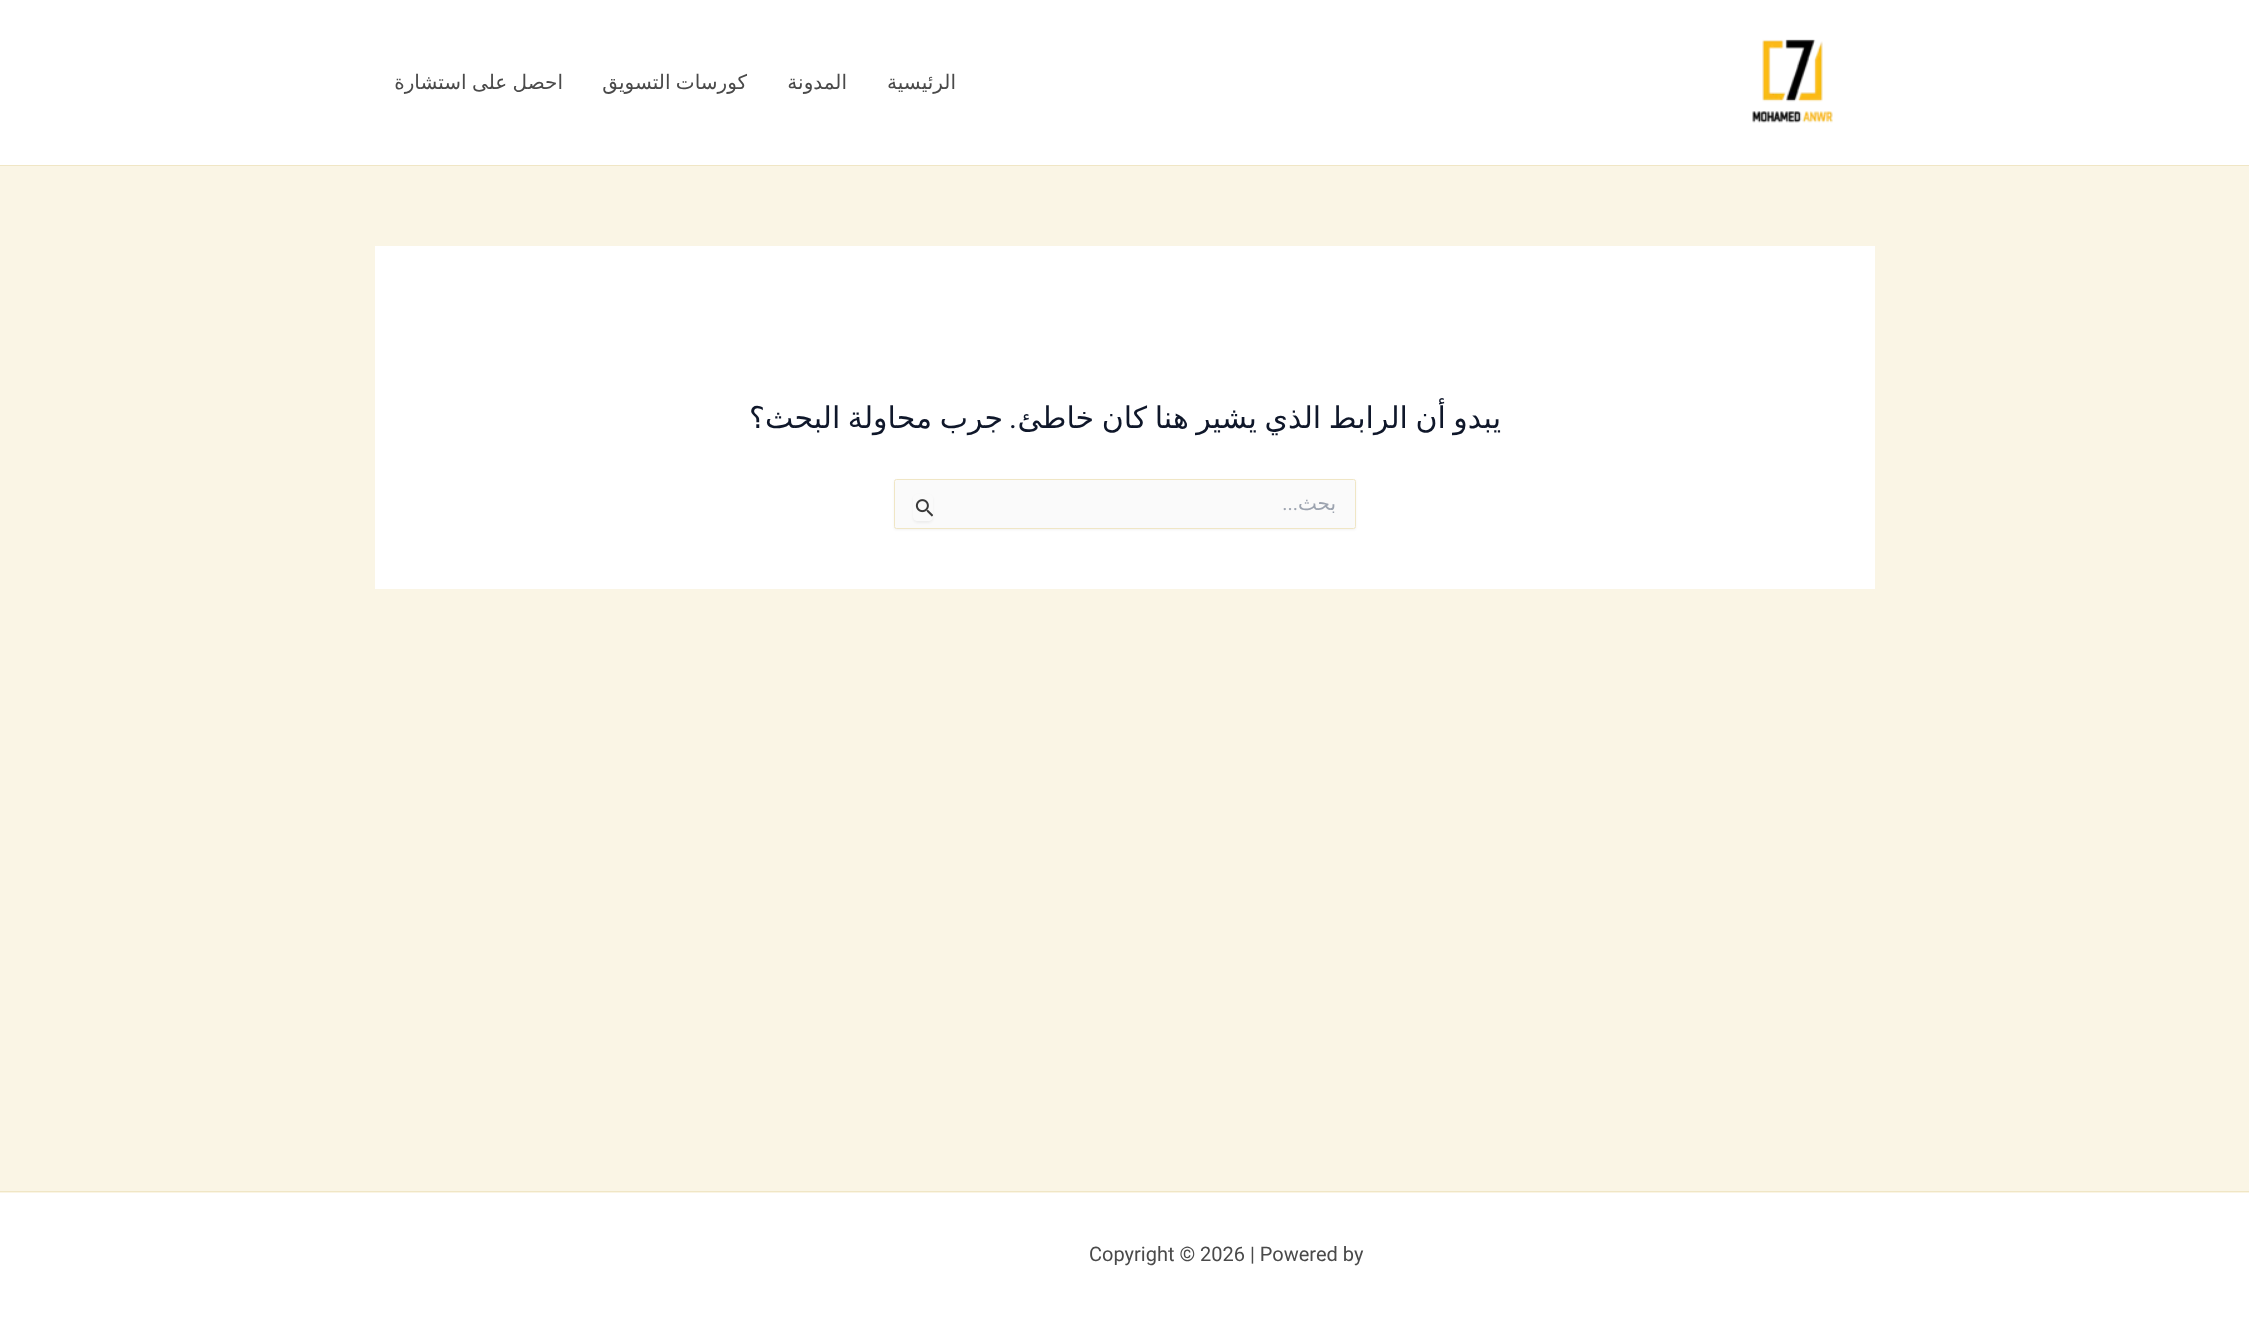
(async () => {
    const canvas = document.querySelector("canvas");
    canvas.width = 2249;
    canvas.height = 1317;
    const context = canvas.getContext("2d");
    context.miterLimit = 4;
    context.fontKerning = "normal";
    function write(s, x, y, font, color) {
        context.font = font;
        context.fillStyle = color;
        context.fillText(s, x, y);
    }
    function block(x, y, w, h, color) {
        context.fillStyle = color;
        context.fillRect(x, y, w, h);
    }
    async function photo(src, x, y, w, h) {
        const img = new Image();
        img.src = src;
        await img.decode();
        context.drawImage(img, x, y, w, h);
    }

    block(0, 0, 2249, 1317, "rgb(250, 245, 229)");
    block(0, 0, 2249, 165, "rgb(255, 255, 255)");
    block(0, 165, 2249, 1, "rgb(240, 230, 197)");
    await photo("media/1.png", 1752, 39, 81, 84);
    context.direction = "rtl";
    write("الرئيسية", 956, 89, "20px DejaVu Sans", "rgb(74, 74, 74)");
    write("المدونة", 847, 89, "20px DejaVu Sans", "rgb(74, 74, 74)");
    context.wordSpacing = "-1px";
    write("كورسات التسويق", 747, 89, "20px DejaVu Sans", "rgb(74, 74, 74)");
    write("احصل على استشارة", 563, 89, "20px DejaVu Sans", "rgb(74, 74, 74)");
    block(375, 246, 1500, 343, "rgb(255, 255, 255)");
    context.wordSpacing = "-2px";
    write("يبدو أن الرابط الذي يشير هنا كان خاطئ", 1501, 428, "30px DejaVu Sans", "rgb(15, 23, 42)");
    context.wordSpacing = "0px";
    write(".", 1017, 428, "30px Roboto", "rgb(15, 23, 42)");
    context.wordSpacing = "-2px";
    write("جرب محاولة البحث؟", 1003, 428, "30px DejaVu Sans", "rgb(15, 23, 42)");
    context.fillStyle = "rgba(0, 0, 0, 0.05)";
    context.filter = "blur(1px)";
    context.beginPath();
    context.roundRect(894, 480, 462, 50, 2.5);
    context.fill();
    context.filter = "none";
    context.fillStyle = "rgb(250, 250, 250)";
    context.beginPath();
    context.roundRect(894.5, 479.5, 461, 49, 2);
    context.fill();
    context.strokeStyle = "rgb(240, 230, 197)";
    context.stroke();
    context.wordSpacing = "0px";
    write("بحث", 1336, 510, "20px DejaVu Sans", "rgb(156, 163, 175)");
    write("...", 1298, 510, "20px Roboto", "rgb(156, 163, 175)");
    context.save();
    context.beginPath();
    context.moveTo(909, 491);
    context.lineTo(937, 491);
    context.lineTo(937, 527);
    context.lineTo(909, 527);
    context.closePath();
    context.moveTo(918, 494);
    context.lineTo(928, 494);
    context.bezierCurveTo(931, 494, 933, 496, 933, 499);
    context.lineTo(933, 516);
    context.bezierCurveTo(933, 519, 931, 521, 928, 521);
    context.lineTo(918, 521);
    context.bezierCurveTo(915, 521, 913, 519, 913, 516);
    context.lineTo(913, 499);
    context.bezierCurveTo(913, 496, 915, 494, 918, 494);
    context.closePath();
    context.clip("evenodd");
    context.fillStyle = "rgba(0, 0, 0, 0.05)";
    context.filter = "blur(1px)";
    context.beginPath();
    context.roundRect(913, 495, 20, 28, 5);
    context.fill();
    context.filter = "none";
    context.restore();
    await photo("media/2.png", 915, 499, 18, 18);
    block(0, 1193, 2249, 124, "rgb(255, 255, 255)");
    block(0, 1191, 2249, 1, "rgb(240, 230, 197)");
    context.direction = "ltr";
    write("Copyright © 2026 | Powered by", 1089, 1261, "20px Roboto", "rgb(74, 74, 74)");
})();
